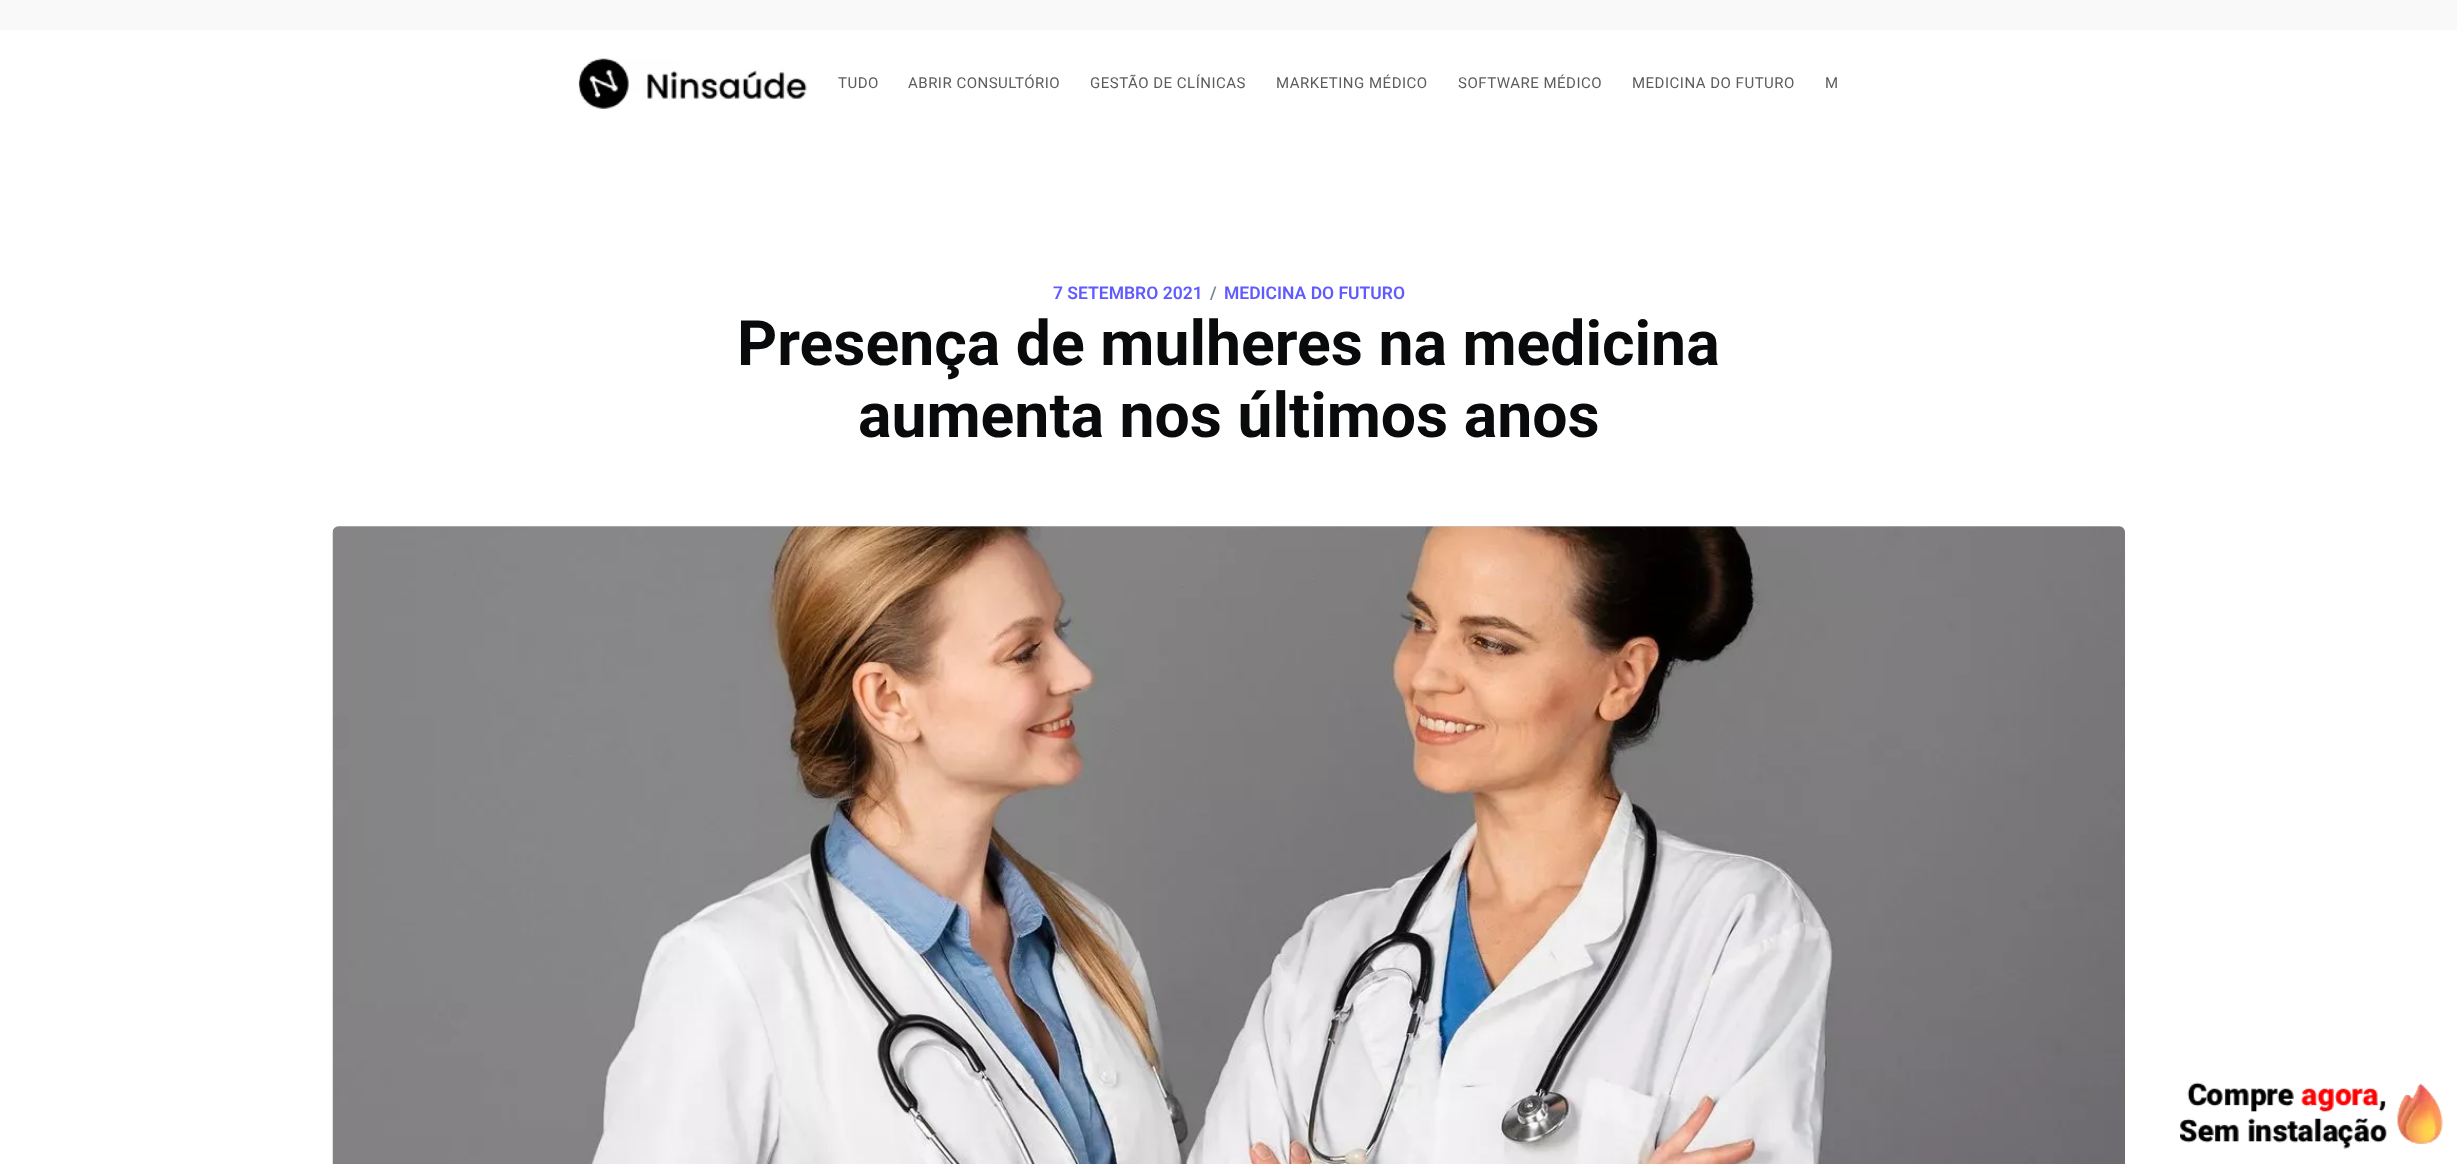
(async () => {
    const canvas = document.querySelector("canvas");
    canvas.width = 2457;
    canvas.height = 1164;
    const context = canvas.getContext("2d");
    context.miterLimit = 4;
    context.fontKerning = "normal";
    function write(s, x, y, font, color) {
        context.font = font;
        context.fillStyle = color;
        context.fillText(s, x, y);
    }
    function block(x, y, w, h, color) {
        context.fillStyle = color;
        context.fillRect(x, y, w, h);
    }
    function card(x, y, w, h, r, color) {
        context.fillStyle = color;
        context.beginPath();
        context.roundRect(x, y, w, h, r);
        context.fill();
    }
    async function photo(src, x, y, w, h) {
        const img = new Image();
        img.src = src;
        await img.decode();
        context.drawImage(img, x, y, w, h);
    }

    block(0, 0, 2457, 1164, "rgb(249, 249, 249)");
    block(0, 30, 2457, 1134, "rgb(255, 255, 255)");
    await photo("media/1.png", 578, 58, 230, 51);
    context.letterSpacing = "0.5px";
    write("TUDO", 838, 88, "15px Roboto", "rgb(92, 92, 92)");
    write("ABRIR CONSULTÓRIO", 908, 88, "15px Roboto", "rgb(92, 92, 92)");
    write("GESTÃO DE CLÍNICAS", 1090, 88, "15px Roboto", "rgb(92, 92, 92)");
    write("MARKETING MÉDICO", 1276, 88, "15px Roboto", "rgb(92, 92, 92)");
    write("SOFTWARE MÉDICO", 1458, 88, "15px Roboto", "rgb(92, 92, 92)");
    write("MEDICINA DO FUTURO", 1632, 88, "15px Roboto", "rgb(92, 92, 92)");
    write("M", 1825, 88, "15px Roboto", "rgb(92, 92, 92)");
    context.letterSpacing = "0px";
    write("7 SETEMBRO 2021", 1053, 299, "600 17.5px Roboto", "rgb(96, 91, 255)");
    write("/", 1210, 299, "600 17.5px Roboto", "rgb(115, 138, 148)");
    write("MEDICINA DO FUTURO", 1224, 299, "600 17.5px Roboto", "rgb(96, 91, 255)");
    write("Presença de mulheres na medicina", 737, 365, "bold 62.5px Roboto", "rgb(9, 10, 11)");
    write("aumenta nos últimos anos", 858, 437, "bold 62.5px Roboto", "rgb(9, 10, 11)");
    card(333, 526, 1792, 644, 6, "rgb(197, 210, 217)");
    await photo("media/2.png", 332, 526, 1793, 638);
    await photo("media/3.png", 2180, 1082, 263, 67);
})();
